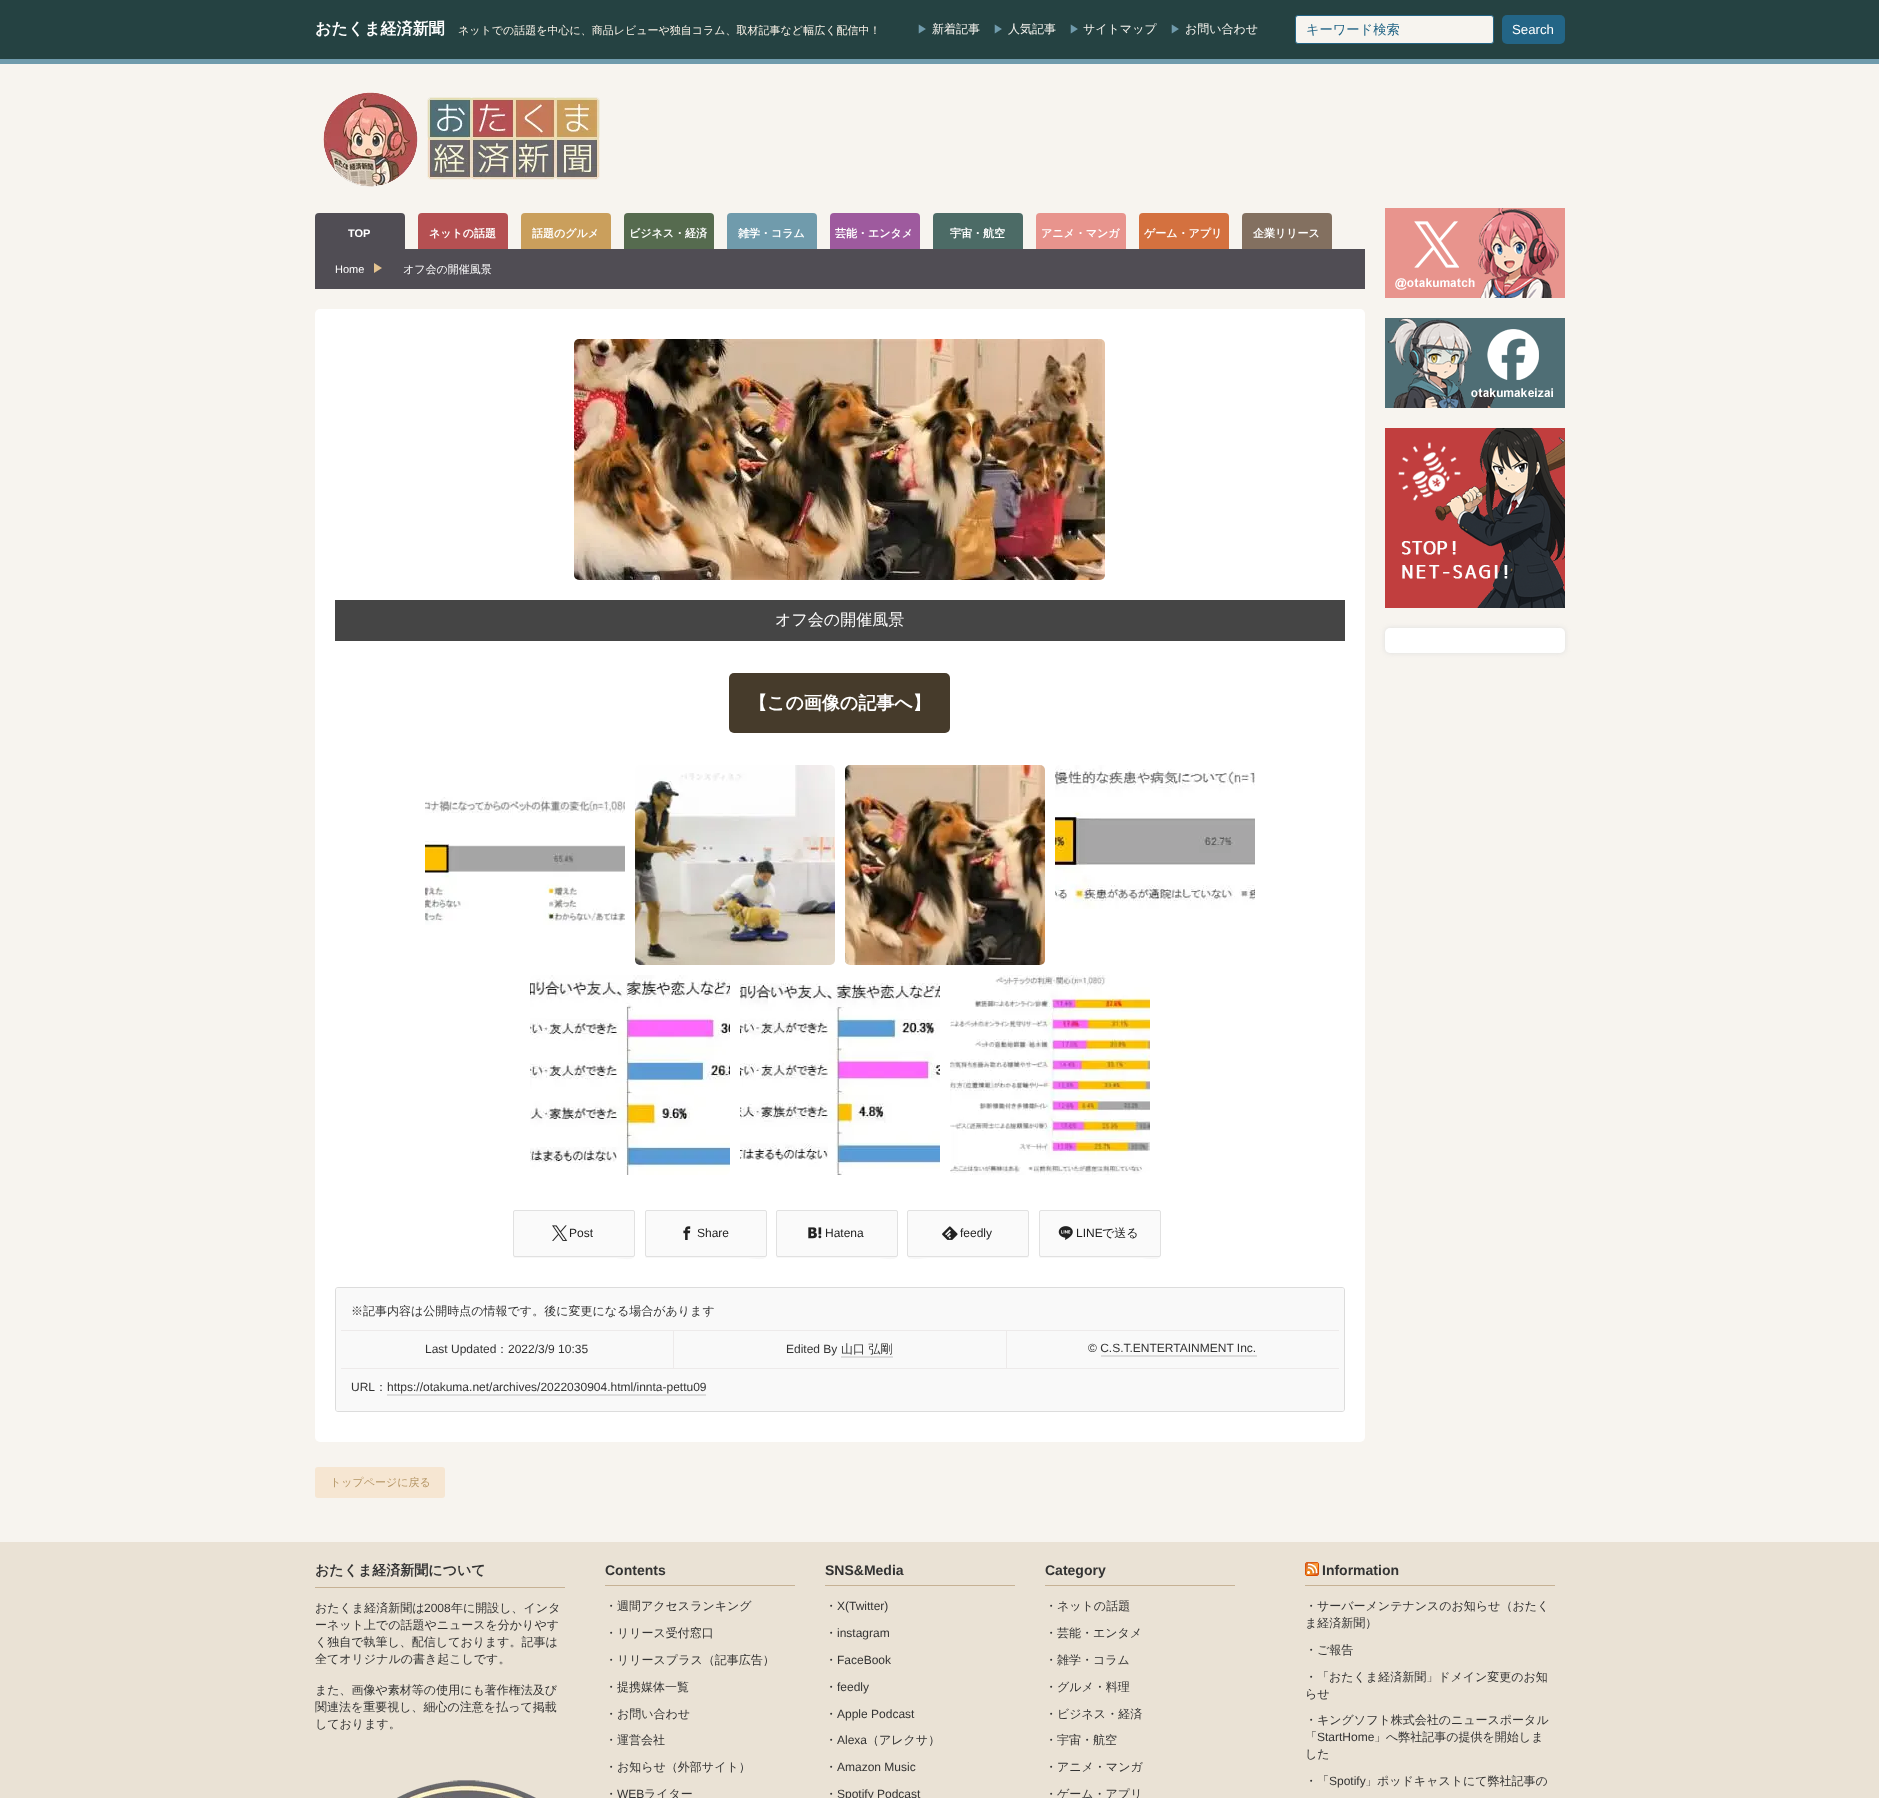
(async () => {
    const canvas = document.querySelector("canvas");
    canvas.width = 1879;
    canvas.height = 1798;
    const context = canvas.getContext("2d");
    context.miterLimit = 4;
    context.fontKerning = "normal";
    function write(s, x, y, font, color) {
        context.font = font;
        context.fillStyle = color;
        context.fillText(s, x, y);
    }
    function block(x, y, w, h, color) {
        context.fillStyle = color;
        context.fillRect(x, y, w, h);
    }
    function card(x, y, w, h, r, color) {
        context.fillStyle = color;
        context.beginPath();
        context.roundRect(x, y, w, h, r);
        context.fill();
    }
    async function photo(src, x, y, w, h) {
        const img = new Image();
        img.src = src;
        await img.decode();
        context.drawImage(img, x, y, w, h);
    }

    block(0, 0, 1879, 1798, "rgb(247, 244, 239)");
    block(0, 0, 1879, 59, "rgb(37, 66, 66)");
    block(0, 59, 1879, 5, "rgb(112, 155, 172)");
    write("おたくま経済新聞", 315, 34, "bold 16px WenQuanYi Zen Hei", "rgb(255, 255, 255)");
    write("ネットでの話題を中心に、商品レビューや独自コラム、取材記事など幅広く配信中！", 458, 34, "500 11px WenQuanYi Zen Hei", "rgb(251, 243, 232)");
    write("▶", 917, 33, "500 11px WenQuanYi Zen Hei", "rgb(112, 155, 172)");
    write("新着記事", 932, 33, "500 12px WenQuanYi Zen Hei", "rgb(247, 244, 239)");
    write("▶", 993, 33, "500 11px WenQuanYi Zen Hei", "rgb(112, 155, 172)");
    write("人気記事", 1008, 33, "500 12px WenQuanYi Zen Hei", "rgb(247, 244, 239)");
    write("▶", 1069, 33, "500 11px WenQuanYi Zen Hei", "rgb(112, 155, 172)");
    write("サイトマップ", 1083, 33, "500 12px WenQuanYi Zen Hei", "rgb(247, 244, 239)");
    write("▶", 1170, 33, "500 11px WenQuanYi Zen Hei", "rgb(112, 155, 172)");
    write("お問い合わせ", 1185, 33, "500 12px WenQuanYi Zen Hei", "rgb(247, 244, 239)");
    context.beginPath();
    context.roundRect(1295.5, 15.5, 198, 28, 2.5);
    context.fill();
    context.strokeStyle = "rgb(35, 101, 134)";
    context.stroke();
    write("キーワード検索", 1306, 34, "500 13.25px WenQuanYi Zen Hei", "rgb(35, 101, 134)");
    card(1502, 15, 63, 29, 5, "rgb(35, 101, 134)");
    write("Search", 1512, 34, "13.25px Liberation Sans", "rgb(255, 255, 255)");
    await photo("media/1.png", 323, 92, 277, 95);
    context.fillStyle = "rgb(80, 77, 84)";
    context.beginPath();
    context.roundRect(315, 213, 90, 36, [4, 4, 0, 0]);
    context.fill();
    write("TOP", 348, 237, "bold 11px Liberation Sans", "rgb(255, 255, 255)");
    context.fillStyle = "rgb(181, 80, 82)";
    context.beginPath();
    context.roundRect(418, 213, 90, 36, [4, 4, 0, 0]);
    context.fill();
    write("ネットの話題", 429, 237, "bold 11px WenQuanYi Zen Hei", "rgb(255, 255, 255)");
    context.fillStyle = "rgb(202, 159, 92)";
    context.beginPath();
    context.roundRect(521, 213, 90, 36, [4, 4, 0, 0]);
    context.fill();
    write("話題のグルメ", 532, 237, "bold 11px WenQuanYi Zen Hei", "rgb(255, 255, 255)");
    context.fillStyle = "rgb(86, 107, 79)";
    context.beginPath();
    context.roundRect(624, 213, 90, 36, [4, 4, 0, 0]);
    context.fill();
    write("ビジネス・経済", 629, 237, "bold 11px WenQuanYi Zen Hei", "rgb(255, 255, 255)");
    context.fillStyle = "rgb(112, 155, 172)";
    context.beginPath();
    context.roundRect(727, 213, 90, 36, [4, 4, 0, 0]);
    context.fill();
    write("雑学・コラム", 738, 237, "bold 11px WenQuanYi Zen Hei", "rgb(255, 255, 255)");
    context.fillStyle = "rgb(158, 90, 158)";
    context.beginPath();
    context.roundRect(830, 213, 90, 36, [4, 4, 0, 0]);
    context.fill();
    write("芸能・エンタメ", 835, 237, "bold 11px WenQuanYi Zen Hei", "rgb(255, 255, 255)");
    context.fillStyle = "rgb(76, 107, 102)";
    context.beginPath();
    context.roundRect(933, 213, 90, 36, [4, 4, 0, 0]);
    context.fill();
    write("宇宙・航空", 950, 237, "bold 11px WenQuanYi Zen Hei", "rgb(255, 255, 255)");
    context.fillStyle = "rgb(232, 148, 141)";
    context.beginPath();
    context.roundRect(1036, 213, 90, 36, [4, 4, 0, 0]);
    context.fill();
    write("アニメ・マンガ", 1041, 237, "bold 11px WenQuanYi Zen Hei", "rgb(255, 255, 255)");
    context.fillStyle = "rgb(212, 113, 63)";
    context.beginPath();
    context.roundRect(1139, 213, 90, 36, [4, 4, 0, 0]);
    context.fill();
    write("ゲーム・アプリ", 1144, 237, "bold 11px WenQuanYi Zen Hei", "rgb(255, 255, 255)");
    context.fillStyle = "rgb(131, 112, 96)";
    context.beginPath();
    context.roundRect(1242, 213, 90, 36, [4, 4, 0, 0]);
    context.fill();
    write("企業リリース", 1253, 237, "bold 11px WenQuanYi Zen Hei", "rgb(255, 255, 255)");
    block(315, 249, 1050, 40, "rgb(80, 77, 84)");
    write("Home", 335, 273, "11px Liberation Sans", "rgb(255, 255, 255)");
    context.fillStyle = "rgb(228, 195, 144)";
    context.beginPath();
    context.moveTo(374, 273);
    context.lineTo(374, 263);
    context.lineTo(382, 268);
    context.closePath();
    context.fill();
    write("オフ会の開催風景", 403, 273, "500 11px WenQuanYi Zen Hei", "rgb(255, 255, 255)");
    card(315, 309, 1050, 1133, 5, "rgb(255, 255, 255)");
    await photo("media/2.png", 574, 339, 531, 241);
    block(335, 600, 1010, 41, "rgb(69, 69, 69)");
    write("オフ会の開催風景", 775, 625, "500 16px WenQuanYi Zen Hei", "rgb(255, 255, 255)");
    card(729, 673, 221, 60, 5, "rgb(70, 59, 43)");
    write("【この画像の記事へ】", 749, 709, "bold 18px WenQuanYi Zen Hei", "rgb(255, 255, 255)");
    await photo("media/3.png", 425, 797, 200, 128);
    await photo("media/4.png", 635, 765, 200, 200);
    await photo("media/5.png", 845, 765, 200, 200);
    await photo("media/6.png", 1055, 765, 200, 144);
    await photo("media/7.png", 530, 975, 200, 200);
    await photo("media/8.png", 740, 983, 200, 192);
    await photo("media/9.png", 950, 975, 200, 200);
    context.fillStyle = "rgb(247, 247, 247)";
    context.beginPath();
    context.moveTo(513, 1255);
    context.bezierCurveTo(513, 1256, 513, 1257, 514, 1258);
    context.lineTo(613, 1258);
    context.bezierCurveTo(619, 1258, 635, 1262, 635, 1255);
    context.bezierCurveTo(635, 1256, 634, 1257, 633, 1257);
    context.lineTo(515, 1257);
    context.bezierCurveTo(514, 1257, 513, 1256, 513, 1255);
    context.closePath();
    context.fill();
    context.fillStyle = "rgb(250, 250, 250)";
    context.beginPath();
    context.roundRect(513.5, 1210.5, 121, 46, 1.5);
    context.fill();
    context.strokeStyle = "rgb(225, 225, 225)";
    context.stroke();
    await photo("media/10.png", 552, 1225, 16, 16);
    write("Post", 569, 1237, "12px Liberation Sans", "rgb(34, 34, 34)");
    context.fillStyle = "rgb(247, 247, 247)";
    context.beginPath();
    context.moveTo(645, 1255);
    context.bezierCurveTo(645, 1256, 645, 1257, 646, 1258);
    context.lineTo(745, 1258);
    context.bezierCurveTo(751, 1258, 767, 1262, 767, 1255);
    context.bezierCurveTo(767, 1256, 766, 1257, 765, 1257);
    context.lineTo(647, 1257);
    context.bezierCurveTo(646, 1257, 645, 1256, 645, 1255);
    context.closePath();
    context.fill();
    context.fillStyle = "rgb(250, 250, 250)";
    context.beginPath();
    context.roundRect(645.5, 1210.5, 121, 46, 1.5);
    context.fill();
    context.stroke();
    await photo("media/11.png", 683, 1226, 8, 14);
    write("Share", 697, 1237, "12px Liberation Sans", "rgb(34, 34, 34)");
    context.fillStyle = "rgb(247, 247, 247)";
    context.beginPath();
    context.moveTo(776, 1255);
    context.bezierCurveTo(776, 1256, 776, 1257, 777, 1258);
    context.lineTo(876, 1258);
    context.bezierCurveTo(882, 1258, 898, 1262, 898, 1255);
    context.bezierCurveTo(898, 1256, 897, 1257, 896, 1257);
    context.lineTo(778, 1257);
    context.bezierCurveTo(777, 1257, 776, 1256, 776, 1255);
    context.closePath();
    context.fill();
    context.fillStyle = "rgb(250, 250, 250)";
    context.beginPath();
    context.roundRect(776.5, 1210.5, 121, 46, 1.5);
    context.fill();
    context.stroke();
    await photo("media/12.png", 808, 1227, 14, 12);
    write("Hatena", 825, 1237, "12px Liberation Sans", "rgb(34, 34, 34)");
    context.fillStyle = "rgb(247, 247, 247)";
    context.beginPath();
    context.moveTo(907, 1255);
    context.bezierCurveTo(907, 1262, 923, 1258, 929, 1258);
    context.lineTo(1028, 1258);
    context.bezierCurveTo(1029, 1257, 1029, 1256, 1029, 1255);
    context.bezierCurveTo(1029, 1256, 1028, 1257, 1027, 1257);
    context.lineTo(909, 1257);
    context.bezierCurveTo(908, 1257, 907, 1256, 907, 1255);
    context.closePath();
    context.fill();
    context.fillStyle = "rgb(250, 250, 250)";
    context.beginPath();
    context.roundRect(907.5, 1210.5, 121, 46, 1.5);
    context.fill();
    context.stroke();
    await photo("media/13.png", 942, 1226, 16, 14);
    write("feedly", 960, 1237, "12px Liberation Sans", "rgb(34, 34, 34)");
    context.fillStyle = "rgb(247, 247, 247)";
    context.beginPath();
    context.moveTo(1039, 1255);
    context.bezierCurveTo(1039, 1256, 1039, 1257, 1040, 1258);
    context.lineTo(1139, 1258);
    context.bezierCurveTo(1145, 1258, 1161, 1262, 1161, 1255);
    context.bezierCurveTo(1161, 1256, 1160, 1257, 1159, 1257);
    context.lineTo(1041, 1257);
    context.bezierCurveTo(1040, 1257, 1039, 1256, 1039, 1255);
    context.closePath();
    context.fill();
    context.fillStyle = "rgb(250, 250, 250)";
    context.beginPath();
    context.roundRect(1039.5, 1210.5, 121, 46, 1.5);
    context.fill();
    context.stroke();
    await photo("media/14.png", 1058, 1226, 15, 14);
    write("LINE", 1076, 1237, "12px Liberation Sans", "rgb(34, 34, 34)");
    write("で送る", 1102, 1237, "500 12px WenQuanYi Zen Hei", "rgb(34, 34, 34)");
    context.beginPath();
    context.roundRect(335.5, 1287.5, 1009, 124, 2.5);
    context.strokeStyle = "rgb(220, 220, 220)";
    context.stroke();
    card(336, 1288, 1008, 123, 2, "rgb(249, 249, 249)");
    block(341, 1330, 998, 1, "rgb(237, 234, 234)");
    write("※記事内容は公開時点の情報です。後に変更になる場合があります", 351, 1315, "500 12px WenQuanYi Zen Hei", "rgb(51, 51, 51)");
    block(673, 1331, 1, 37, "rgb(237, 234, 234)");
    write("Last Updated", 425, 1353, "12px Liberation Sans", "rgb(51, 51, 51)");
    write("：", 496, 1353, "500 12px WenQuanYi Zen Hei", "rgb(51, 51, 51)");
    write("2022/3/9 10:35", 508, 1353, "12px Liberation Sans", "rgb(51, 51, 51)");
    block(1006, 1331, 1, 37, "rgb(237, 234, 234)");
    write("Edited By", 786, 1353, "12px Liberation Sans", "rgb(51, 51, 51)");
    write("山口 弘剛", 841, 1353, "500 12px WenQuanYi Zen Hei", "rgb(51, 51, 51)");
    block(841, 1356, 52, 2, "rgb(221, 221, 221)");
    write("© C.S.T.ENTERTAINMENT Inc.", 1088, 1352, "12px Liberation Sans", "rgb(51, 51, 51)");
    block(1101, 1355, 156, 2, "rgb(221, 221, 221)");
    block(341, 1368, 998, 1, "rgb(237, 234, 234)");
    write("URL", 351, 1391, "12px Liberation Sans", "rgb(51, 51, 51)");
    write("：", 375, 1391, "500 12px WenQuanYi Zen Hei", "rgb(51, 51, 51)");
    write("https://otakuma.net/archives/2022030904.html/innta-pettu09", 387, 1391, "12px Liberation Sans", "rgb(51, 51, 51)");
    block(387, 1394, 319, 2, "rgb(221, 221, 221)");
    card(315, 1467, 130, 31, 3, "rgb(246, 230, 210)");
    write("トップページに戻る", 330, 1486, "500 11px WenQuanYi Zen Hei", "rgb(181, 150, 102)");
    await photo("media/15.png", 1385, 208, 180, 90);
    await photo("media/16.png", 1385, 318, 180, 90);
    await photo("media/17.png", 1385, 428, 180, 180);
    context.fillStyle = "rgb(221, 221, 221)";
    context.filter = "blur(2.5px)";
    context.beginPath();
    context.roundRect(1385, 628, 180, 25, 5);
    context.fill();
    context.filter = "none";
    card(1385, 628, 180, 25, 5, "rgb(255, 255, 255)");
    block(0, 1542, 1879, 256, "rgb(234, 226, 213)");
    block(315, 1587, 250, 1, "rgb(198, 177, 148)");
    write("おたくま経済新聞について", 315, 1575, "bold 14px WenQuanYi Zen Hei", "rgb(51, 51, 51)");
    write("おたくま経済新聞は", 315, 1612, "500 12px WenQuanYi Zen Hei", "rgb(51, 51, 51)");
    write("2008", 424, 1612, "12px Liberation Sans", "rgb(51, 51, 51)");
    write("年に開設し、インタ", 451, 1612, "500 12px WenQuanYi Zen Hei", "rgb(51, 51, 51)");
    write("ーネット上での話題やニュースを分かりやす", 315, 1629, "500 12px WenQuanYi Zen Hei", "rgb(51, 51, 51)");
    write("く独自で執筆し、配信しております。記事は", 315, 1646, "500 12px WenQuanYi Zen Hei", "rgb(51, 51, 51)");
    write("全てオリジナルの書き起こしです。", 315, 1663, "500 12px WenQuanYi Zen Hei", "rgb(51, 51, 51)");
    write("また、画像や素材等の使用にも著作権法及び", 315, 1694, "500 12px WenQuanYi Zen Hei", "rgb(51, 51, 51)");
    write("関連法を重要視し、細心の注意を払って掲載", 315, 1711, "500 12px WenQuanYi Zen Hei", "rgb(51, 51, 51)");
    write("しております。", 315, 1728, "500 12px WenQuanYi Zen Hei", "rgb(51, 51, 51)");
    block(605, 1585, 190, 1, "rgb(198, 177, 148)");
    write("Contents", 605, 1575, "bold 14px Liberation Sans", "rgb(51, 51, 51)");
    write("・週間アクセスランキング", 605, 1610, "500 12px WenQuanYi Zen Hei", "rgb(51, 51, 51)");
    write("・リリース受付窓口", 605, 1637, "500 12px WenQuanYi Zen Hei", "rgb(51, 51, 51)");
    write("・リリースプラス（記事広告）", 605, 1664, "500 12px WenQuanYi Zen Hei", "rgb(51, 51, 51)");
    write("・提携媒体一覧", 605, 1691, "500 12px WenQuanYi Zen Hei", "rgb(51, 51, 51)");
    write("・お問い合わせ", 605, 1718, "500 12px WenQuanYi Zen Hei", "rgb(51, 51, 51)");
    write("・運営会社", 605, 1744, "500 12px WenQuanYi Zen Hei", "rgb(51, 51, 51)");
    write("・お知らせ（外部サイト）", 605, 1771, "500 12px WenQuanYi Zen Hei", "rgb(51, 51, 51)");
    write("・", 605, 1798, "500 12px WenQuanYi Zen Hei", "rgb(51, 51, 51)");
    write("WEB", 617, 1798, "12px Liberation Sans", "rgb(51, 51, 51)");
    write("ライター", 644, 1798, "500 12px WenQuanYi Zen Hei", "rgb(51, 51, 51)");
    block(825, 1585, 190, 1, "rgb(198, 177, 148)");
    write("SNS&Media", 825, 1575, "bold 14px Liberation Sans", "rgb(51, 51, 51)");
    write("・", 825, 1610, "500 12px WenQuanYi Zen Hei", "rgb(51, 51, 51)");
    write("X(Twitter)", 837, 1610, "12px Liberation Sans", "rgb(51, 51, 51)");
    write("・", 825, 1637, "500 12px WenQuanYi Zen Hei", "rgb(51, 51, 51)");
    write("instagram", 837, 1637, "12px Liberation Sans", "rgb(51, 51, 51)");
    write("・", 825, 1664, "500 12px WenQuanYi Zen Hei", "rgb(51, 51, 51)");
    write("FaceBook", 837, 1664, "12px Liberation Sans", "rgb(51, 51, 51)");
    write("・", 825, 1691, "500 12px WenQuanYi Zen Hei", "rgb(51, 51, 51)");
    write("feedly", 837, 1691, "12px Liberation Sans", "rgb(51, 51, 51)");
    write("・", 825, 1718, "500 12px WenQuanYi Zen Hei", "rgb(51, 51, 51)");
    write("Apple Podcast", 837, 1718, "12px Liberation Sans", "rgb(51, 51, 51)");
    write("・", 825, 1744, "500 12px WenQuanYi Zen Hei", "rgb(51, 51, 51)");
    write("Alexa", 837, 1744, "12px Liberation Sans", "rgb(51, 51, 51)");
    write("（アレクサ）", 867, 1744, "500 12px WenQuanYi Zen Hei", "rgb(51, 51, 51)");
    write("・", 825, 1771, "500 12px WenQuanYi Zen Hei", "rgb(51, 51, 51)");
    write("Amazon Music", 837, 1771, "12px Liberation Sans", "rgb(51, 51, 51)");
    write("・", 825, 1798, "500 12px WenQuanYi Zen Hei", "rgb(51, 51, 51)");
    write("Spotify Podcast", 837, 1798, "12px Liberation Sans", "rgb(51, 51, 51)");
    block(1045, 1585, 190, 1, "rgb(198, 177, 148)");
    write("Category", 1045, 1575, "bold 14px Liberation Sans", "rgb(51, 51, 51)");
    write("・ネットの話題", 1045, 1610, "500 12px WenQuanYi Zen Hei", "rgb(51, 51, 51)");
    write("・芸能・エンタメ", 1045, 1637, "500 12px WenQuanYi Zen Hei", "rgb(51, 51, 51)");
    write("・雑学・コラム", 1045, 1664, "500 12px WenQuanYi Zen Hei", "rgb(51, 51, 51)");
    write("・グルメ・料理", 1045, 1691, "500 12px WenQuanYi Zen Hei", "rgb(51, 51, 51)");
    write("・ビジネス・経済", 1045, 1718, "500 12px WenQuanYi Zen Hei", "rgb(51, 51, 51)");
    write("・宇宙・航空", 1045, 1744, "500 12px WenQuanYi Zen Hei", "rgb(51, 51, 51)");
    write("・アニメ・マンガ", 1045, 1771, "500 12px WenQuanYi Zen Hei", "rgb(51, 51, 51)");
    write("・ゲーム・アプリ", 1045, 1798, "500 12px WenQuanYi Zen Hei", "rgb(51, 51, 51)");
    block(1305, 1585, 250, 1, "rgb(198, 177, 148)");
    await photo("media/18.png", 1305, 1562, 14, 14);
    write("Information", 1322, 1575, "bold 14px Liberation Sans", "rgb(51, 51, 51)");
    write("・サーバーメンテナンスのお知らせ（おたく", 1305, 1610, "500 12px WenQuanYi Zen Hei", "rgb(51, 51, 51)");
    write("ま経済新聞）", 1305, 1627, "500 12px WenQuanYi Zen Hei", "rgb(51, 51, 51)");
    write("・ご報告", 1305, 1654, "500 12px WenQuanYi Zen Hei", "rgb(51, 51, 51)");
    write("・「おたくま経済新聞」ドメイン変更のお知", 1305, 1681, "500 12px WenQuanYi Zen Hei", "rgb(51, 51, 51)");
    write("らせ", 1305, 1698, "500 12px WenQuanYi Zen Hei", "rgb(51, 51, 51)");
    write("・キングソフト株式会社のニュースポータル", 1305, 1724, "500 12px WenQuanYi Zen Hei", "rgb(51, 51, 51)");
    write("「", 1305, 1741, "500 12px WenQuanYi Zen Hei", "rgb(51, 51, 51)");
    write("StartHome", 1317, 1741, "12px Liberation Sans", "rgb(51, 51, 51)");
    write("」へ弊社記事の提供を開始しま", 1374, 1741, "500 12px WenQuanYi Zen Hei", "rgb(51, 51, 51)");
    write("した", 1305, 1758, "500 12px WenQuanYi Zen Hei", "rgb(51, 51, 51)");
    write("・「", 1305, 1785, "500 12px WenQuanYi Zen Hei", "rgb(51, 51, 51)");
    write("Spotify", 1329, 1785, "12px Liberation Sans", "rgb(51, 51, 51)");
    write("」ポッドキャストにて弊社記事の", 1365, 1785, "500 12px WenQuanYi Zen Hei", "rgb(51, 51, 51)");
    await photo("media/19.png", 397, 1780, 139, 18);
})();
